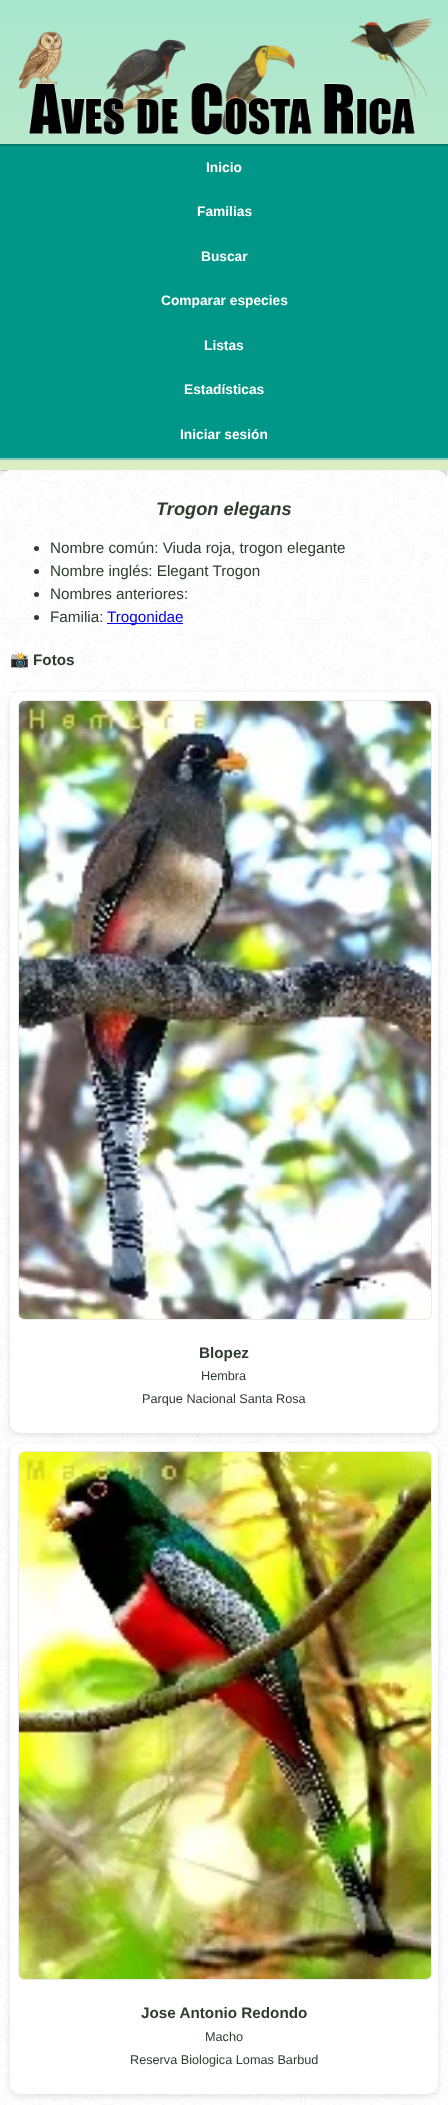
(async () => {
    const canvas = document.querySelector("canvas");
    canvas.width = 448;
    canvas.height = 2105;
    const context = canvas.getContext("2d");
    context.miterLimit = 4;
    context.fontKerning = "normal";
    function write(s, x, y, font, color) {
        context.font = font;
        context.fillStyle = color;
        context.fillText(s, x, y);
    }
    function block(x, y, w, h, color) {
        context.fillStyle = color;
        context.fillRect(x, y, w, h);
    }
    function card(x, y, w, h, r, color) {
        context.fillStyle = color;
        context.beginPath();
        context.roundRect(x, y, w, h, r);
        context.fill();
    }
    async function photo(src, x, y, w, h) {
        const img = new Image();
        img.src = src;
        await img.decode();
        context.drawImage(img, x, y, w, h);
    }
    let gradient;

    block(0, 0, 448, 2105, "rgb(255, 255, 255)");
    await photo("media/1.png", 0, 470, 448, 1635);
    context.fillStyle = "rgba(0, 0, 0, 0.1)";
    context.filter = "blur(2.5px)";
    context.beginPath();
    context.rect(0, 2, 448, 470);
    context.fill();
    context.filter = "none";
    gradient = context.createLinearGradient(224, 0, 224, 470);
    gradient.addColorStop(0, "rgb(168, 230, 207)");
    gradient.addColorStop(1, "rgb(220, 237, 193)");
    context.fillStyle = gradient;
    context.fillRect(0, 0, 448, 470);
    await photo("media/2.png", 18, 18, 414, 117);
    block(0, 146, 448, 312, "rgb(0, 150, 136)");
    block(0, 144, 448, 2, "rgb(0, 121, 107)");
    block(0, 458, 448, 2, "rgb(128, 203, 196)");
    write("Inicio", 206, 172, "bold 13.75px Liberation Sans", "rgb(255, 255, 255)");
    write("Familias", 197, 216, "bold 13.75px Liberation Sans", "rgb(255, 255, 255)");
    write("Buscar", 201, 261, "bold 13.75px Liberation Sans", "rgb(255, 255, 255)");
    write("Comparar especies", 161, 305, "bold 13.75px Liberation Sans", "rgb(255, 255, 255)");
    write("Listas", 204, 350, "bold 13.75px Liberation Sans", "rgb(255, 255, 255)");
    write("Estadísticas", 184, 394, "bold 13.75px Liberation Sans", "rgb(255, 255, 255)");
    write("Iniciar sesión", 180, 439, "bold 13.75px Liberation Sans", "rgb(255, 255, 255)");
    card(0, 470, 448, 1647, 12, "rgba(255, 255, 255, 0.85)");
    write("Trogon elegans", 156, 515, "italic bold 18.25px Liberation Sans", "rgb(46, 61, 47)");
    context.beginPath();
    context.arc(36.5, 548.5, 2.5, 0, Math.PI * 2);
    context.fill();
    write("Nombre común: Viuda roja, trogon elegante", 50, 553, "15.25px Liberation Sans", "rgb(46, 61, 47)");
    context.beginPath();
    context.arc(36.5, 571.5, 2.5, 0, Math.PI * 2);
    context.fill();
    write("Nombre inglés: Elegant Trogon", 50, 576, "15.25px Liberation Sans", "rgb(46, 61, 47)");
    context.beginPath();
    context.arc(36.5, 594.5, 2.5, 0, Math.PI * 2);
    context.fill();
    write("Nombres anteriores:", 50, 599, "15.25px Liberation Sans", "rgb(46, 61, 47)");
    context.beginPath();
    context.arc(36.5, 617.5, 2.5, 0, Math.PI * 2);
    context.fill();
    write("Familia:", 50, 622, "15.25px Liberation Sans", "rgb(46, 61, 47)");
    block(107, 623, 76, 1, "rgb(0, 0, 238)");
    write("Trogonidae", 107, 622, "15.25px Liberation Sans", "rgb(0, 0, 238)");
    write("📸", 10, 665, "bold 15.25px Noto Color Emoji", "rgb(46, 61, 47)");
    write("Fotos", 33, 665, "bold 15.25px Liberation Sans", "rgb(46, 61, 47)");
    context.fillStyle = "rgba(0, 0, 0, 0.12)";
    context.filter = "blur(3px)";
    context.beginPath();
    context.roundRect(10, 694, 428, 741, 10);
    context.fill();
    context.filter = "none";
    card(10, 692, 428, 741, 10, "rgb(255, 255, 255)");
    context.beginPath();
    context.roundRect(18.5, 700.5, 413, 619, 5.5);
    context.strokeStyle = "rgb(235, 235, 235)";
    context.stroke();
    await photo("media/3.png", 19, 701, 412, 618);
    write("Blopez", 199, 1358, "bold 15.25px Liberation Sans", "rgb(46, 61, 47)");
    write("Hembra", 201, 1380, "12.7px Liberation Sans", "rgb(46, 61, 47)");
    write("Parque Nacional Santa Rosa", 142, 1403, "12.7px Liberation Sans", "rgb(46, 61, 47)");
    context.fillStyle = "rgba(0, 0, 0, 0.12)";
    context.filter = "blur(3px)";
    context.beginPath();
    context.roundRect(10, 1445, 428, 651, 10);
    context.fill();
    context.filter = "none";
    card(10, 1443, 428, 651, 10, "rgb(255, 255, 255)");
    context.beginPath();
    context.roundRect(18.5, 1451.5, 413, 528, 5.5);
    context.stroke();
    await photo("media/4.png", 19, 1452, 412, 527);
    write("Jose Antonio Redondo", 141, 2018, "bold 15.25px Liberation Sans", "rgb(46, 61, 47)");
    write("Macho", 205, 2041, "12.7px Liberation Sans", "rgb(46, 61, 47)");
    write("Reserva Biologica Lomas Barbud", 130, 2064, "12.7px Liberation Sans", "rgb(46, 61, 47)");
})();
